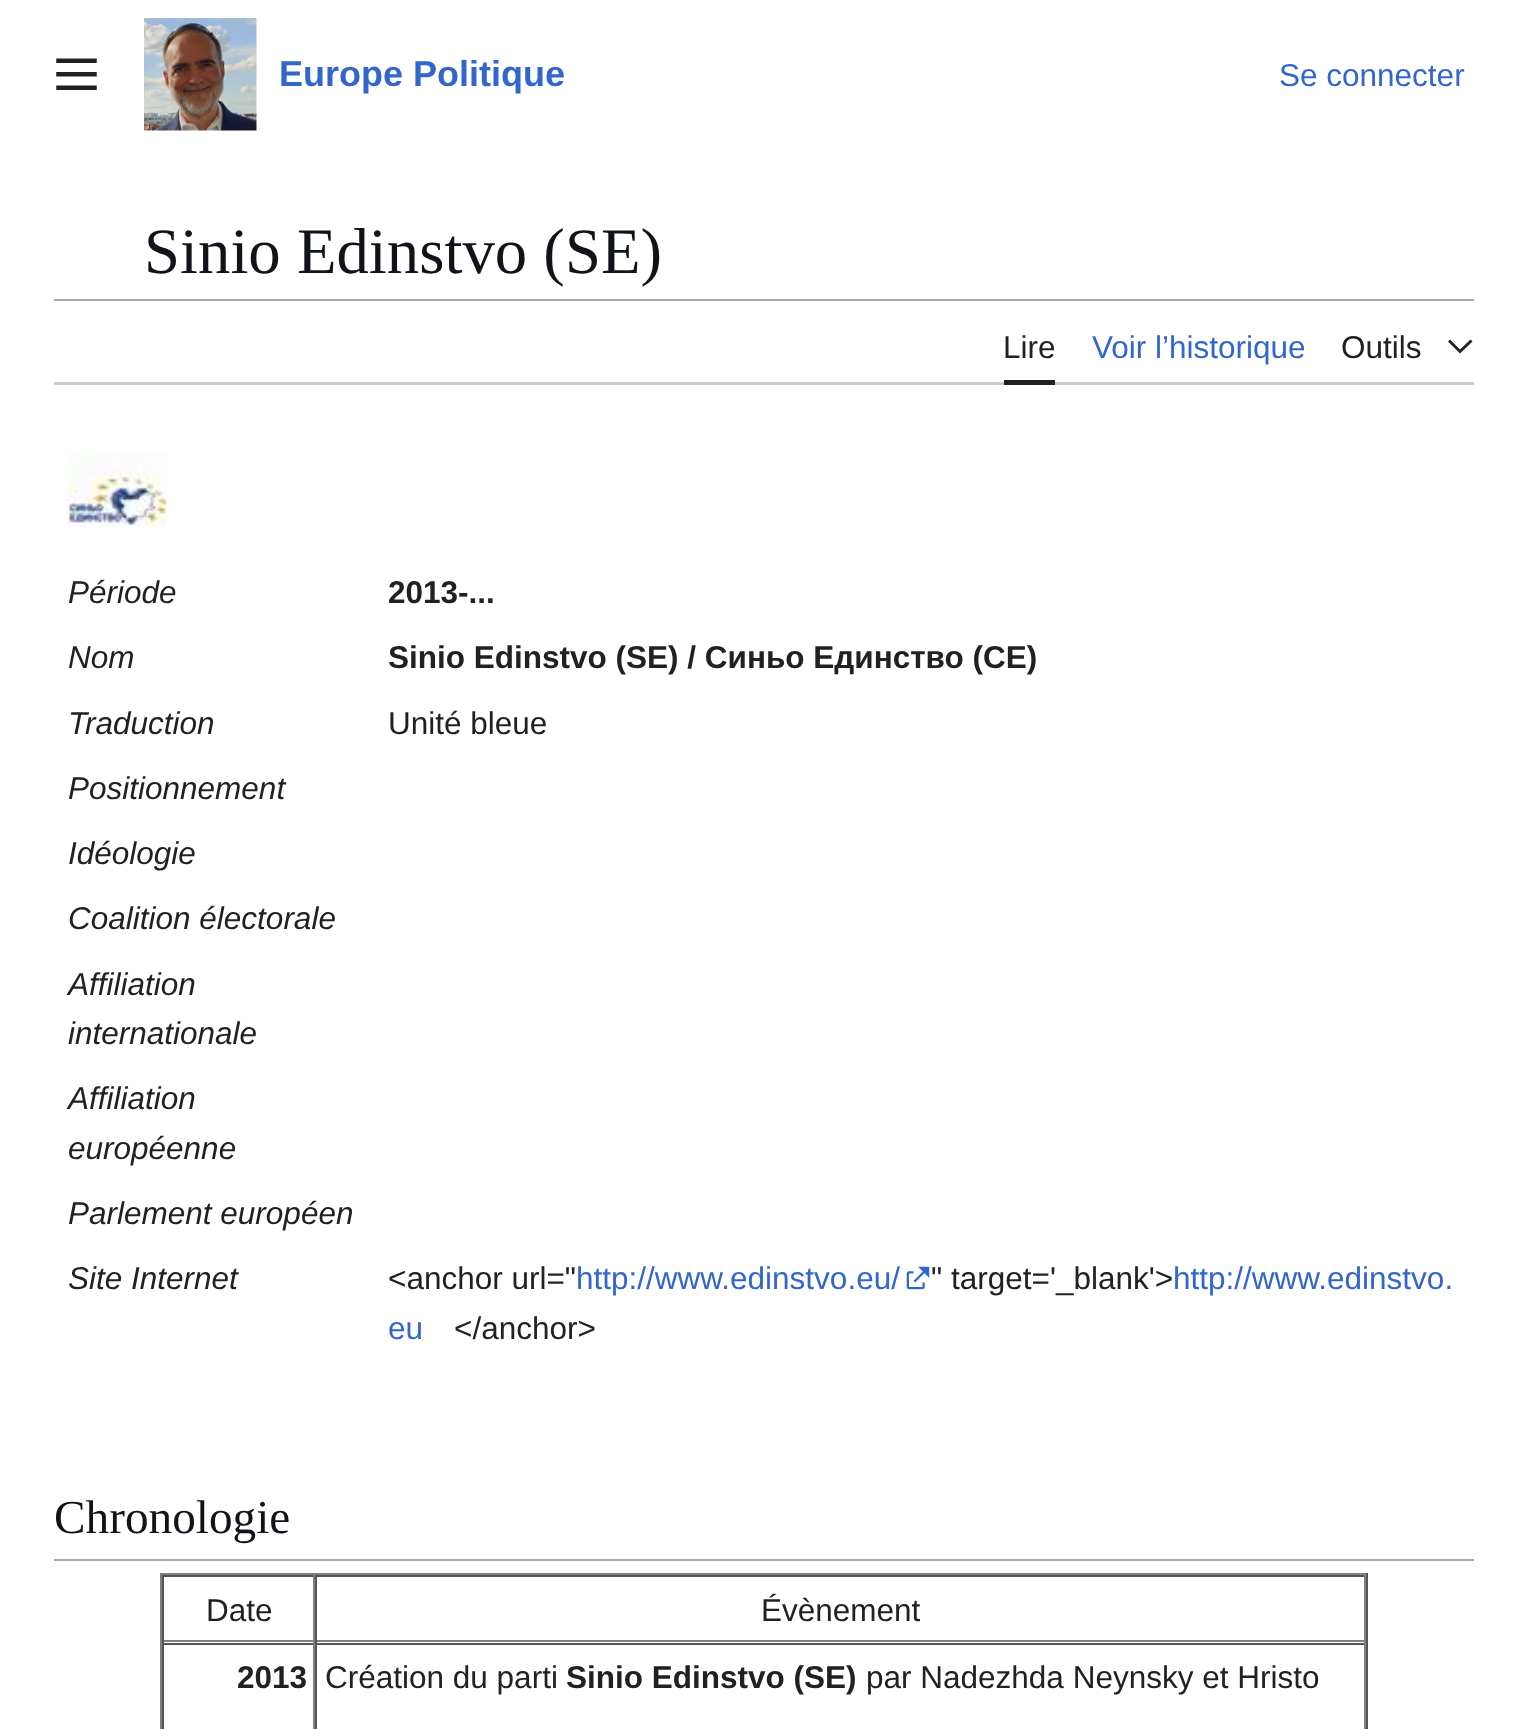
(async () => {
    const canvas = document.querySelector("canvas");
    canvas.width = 1526;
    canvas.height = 1729;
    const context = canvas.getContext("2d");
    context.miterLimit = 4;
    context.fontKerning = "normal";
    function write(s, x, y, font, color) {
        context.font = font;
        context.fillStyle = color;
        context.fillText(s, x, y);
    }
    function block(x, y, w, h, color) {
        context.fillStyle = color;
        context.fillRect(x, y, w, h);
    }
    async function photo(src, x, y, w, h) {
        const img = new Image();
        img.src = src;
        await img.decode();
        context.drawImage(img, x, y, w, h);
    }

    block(0, 0, 1526, 1729, "rgb(255, 255, 255)");
    await photo("media/1.png", 56, 58, 41, 32);
    await photo("media/2.png", 144, 18, 113, 113);
    write("Europe Politique", 279, 86, "bold 36px Liberation Sans", "rgb(51, 102, 204)");
    write("Se connecter", 1279, 86, "31.5px Liberation Sans", "rgb(51, 102, 204)");
    write("Sinio Edinstvo (SE)", 144, 273, "64.75px Liberation Serif", "rgb(16, 20, 24)");
    block(54, 299, 1420, 2, "rgb(162, 169, 177)");
    context.fillStyle = "rgb(200, 204, 209)";
    context.beginPath();
    context.moveTo(54, 382);
    context.lineTo(54, 385);
    context.lineTo(1474, 385);
    context.lineTo(1474, 304);
    context.lineTo(1474, 382);
    context.closePath();
    context.fill();
    block(1004, 380, 51, 5, "rgb(32, 33, 34)");
    write("Lire", 1003, 358, "31.5px Liberation Sans", "rgb(32, 33, 34)");
    write("Voir l’historique", 1092, 358, "31.5px Liberation Sans", "rgb(51, 102, 204)");
    write("Outils", 1341, 358, "31.5px Liberation Sans", "rgb(32, 33, 34)");
    context.beginPath();
    context.moveTo(1470.5, 339.5);
    context.lineTo(1460, 349.5);
    context.lineTo(1450, 339.5);
    context.lineTo(1448, 341.5);
    context.lineTo(1460, 353.5);
    context.lineTo(1472.5, 341.5);
    context.closePath();
    context.fill();
    await photo("media/3.png", 67, 452, 100, 75);
    write("Période", 68, 603, "italic 31.5px Liberation Sans", "rgb(32, 33, 34)");
    write("2013-...", 388, 603, "bold 31.5px Liberation Sans", "rgb(32, 33, 34)");
    write("Nom", 68, 668, "italic 31.5px Liberation Sans", "rgb(32, 33, 34)");
    write("Sinio Edinstvo (SE) / Синьо Единство (CE)", 388, 668, "bold 31.5px Liberation Sans", "rgb(32, 33, 34)");
    write("Traduction", 68, 734, "italic 31.5px Liberation Sans", "rgb(32, 33, 34)");
    write("Unité bleue", 388, 734, "31.5px Liberation Sans", "rgb(32, 33, 34)");
    write("Positionnement", 68, 799, "italic 31.5px Liberation Sans", "rgb(32, 33, 34)");
    write("Idéologie", 68, 864, "italic 31.5px Liberation Sans", "rgb(32, 33, 34)");
    write("Coalition électorale", 68, 929, "italic 31.5px Liberation Sans", "rgb(32, 33, 34)");
    write("Affiliation", 68, 995, "italic 31.5px Liberation Sans", "rgb(32, 33, 34)");
    write("internationale", 68, 1044, "italic 31.5px Liberation Sans", "rgb(32, 33, 34)");
    write("Affiliation", 68, 1109, "italic 31.5px Liberation Sans", "rgb(32, 33, 34)");
    write("européenne", 68, 1159, "italic 31.5px Liberation Sans", "rgb(32, 33, 34)");
    write("Parlement européen", 68, 1224, "italic 31.5px Liberation Sans", "rgb(32, 33, 34)");
    write("Site Internet", 68, 1289, "italic 31.5px Liberation Sans", "rgb(32, 33, 34)");
    write("<anchor url=\"", 388, 1289, "31.5px Liberation Sans", "rgb(32, 33, 34)");
    write("http://www.edinstvo.eu/", 576, 1289, "31.5px Liberation Sans", "rgb(51, 102, 204)");
    await photo("media/4.png", 906, 1266, 24, 24);
    write("\" target='_blank'>", 931, 1289, "31.5px Liberation Sans", "rgb(32, 33, 34)");
    write("http://www.edinstvo.", 1173, 1289, "31.5px Liberation Sans", "rgb(51, 102, 204)");
    write("eu", 388, 1339, "31.5px Liberation Sans", "rgb(51, 102, 204)");
    write("<\/anchor>", 454, 1339, "31.5px Liberation Sans", "rgb(32, 33, 34)");
    block(54, 1559, 1420, 2, "rgb(162, 169, 177)");
    write("Chronologie", 54, 1533, "47.25px Liberation Serif", "rgb(16, 20, 24)");
    block(160, 1573, 1208, 2, "rgb(128, 128, 128)");
    block(1366, 1573, 2, 156, "rgb(85, 85, 85)");
    block(160, 1573, 2, 156, "rgb(128, 128, 128)");
    block(162, 1575, 1204, 2, "rgb(85, 85, 85)");
    block(313, 1575, 2, 68, "rgb(128, 128, 128)");
    block(162, 1640, 153, 2, "rgb(128, 128, 128)");
    block(162, 1575, 2, 68, "rgb(85, 85, 85)");
    write("Date", 206, 1621, "31.5px Liberation Sans", "rgb(32, 33, 34)");
    block(1364, 1575, 2, 68, "rgb(128, 128, 128)");
    block(315, 1640, 1051, 2, "rgb(128, 128, 128)");
    block(315, 1575, 2, 68, "rgb(85, 85, 85)");
    write("Évènement", 761, 1621, "31.5px Liberation Sans", "rgb(32, 33, 34)");
    block(162, 1643, 1204, 2, "rgb(85, 85, 85)");
    block(313, 1643, 2, 86, "rgb(128, 128, 128)");
    block(162, 1643, 2, 86, "rgb(85, 85, 85)");
    write("2013", 237, 1688, "bold 31.5px Liberation Sans", "rgb(32, 33, 34)");
    block(1364, 1643, 2, 86, "rgb(128, 128, 128)");
    block(315, 1643, 2, 86, "rgb(85, 85, 85)");
    write("Création du parti", 325, 1688, "31.5px Liberation Sans", "rgb(32, 33, 34)");
    write("Sinio Edinstvo (SE)", 566, 1688, "bold 31.5px Liberation Sans", "rgb(32, 33, 34)");
    write("par Nadezhda Neynsky et Hristo", 866, 1688, "31.5px Liberation Sans", "rgb(32, 33, 34)");
})();
